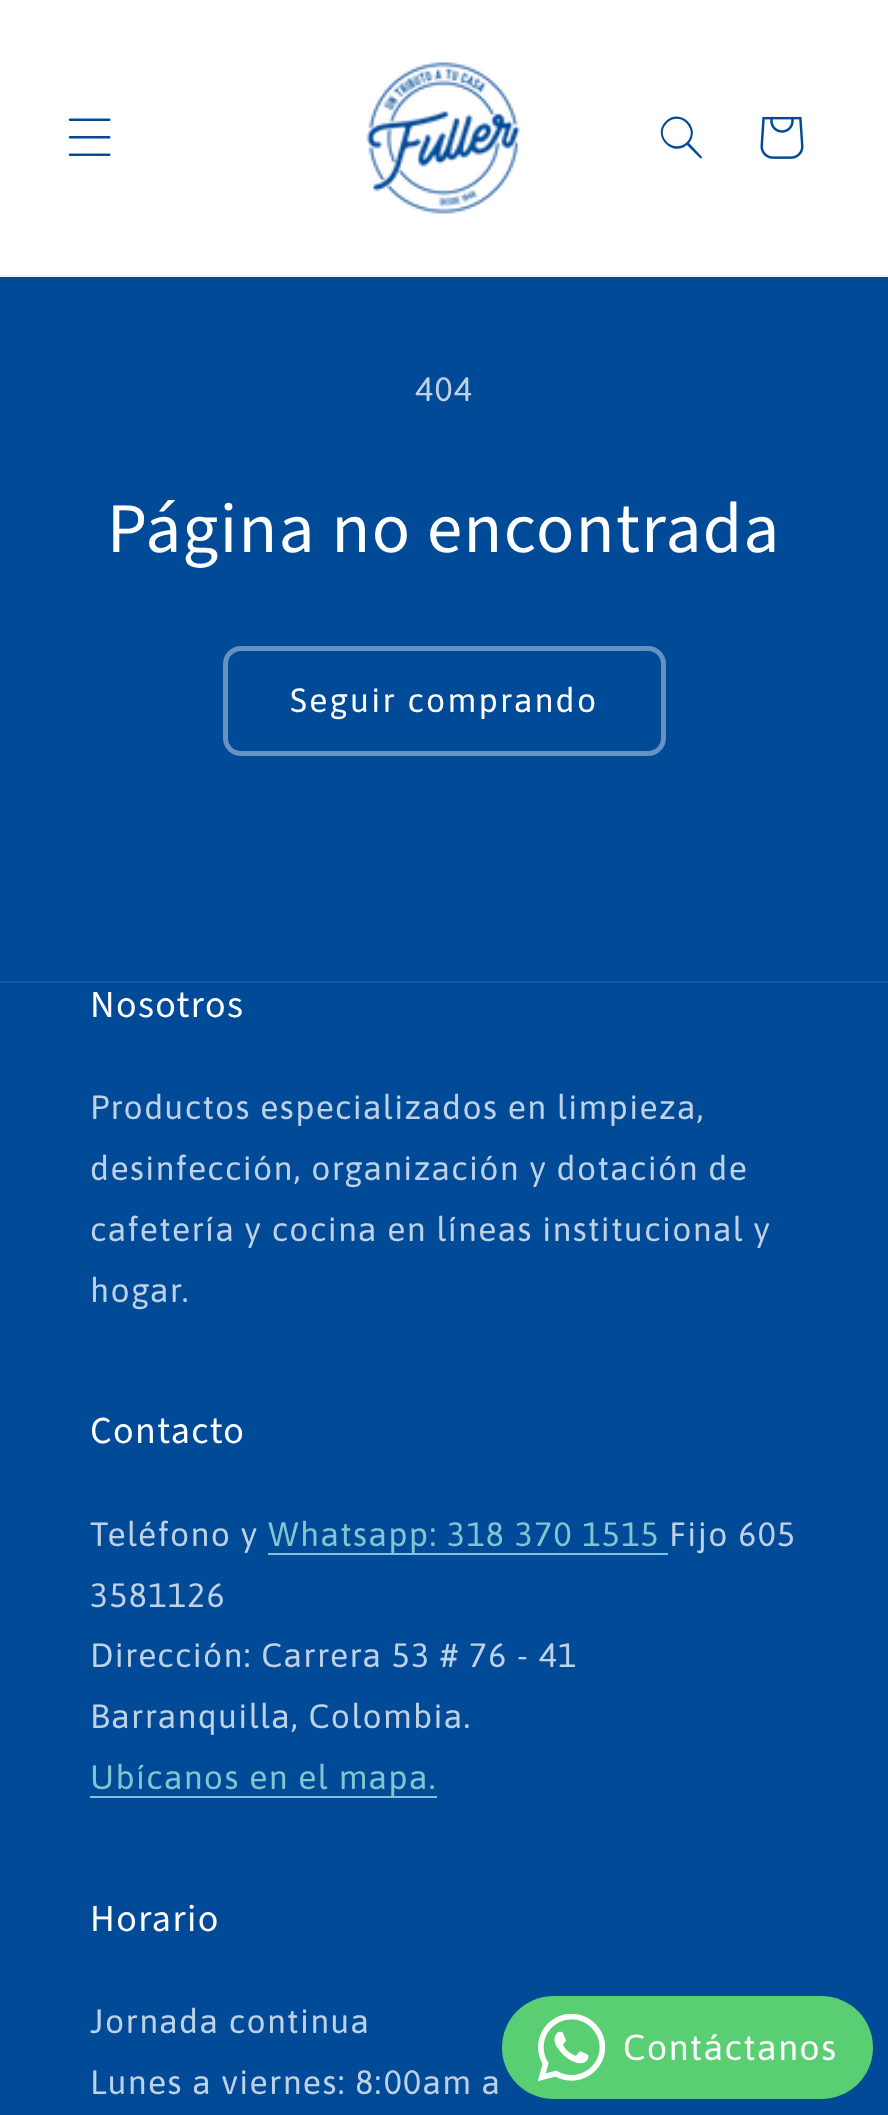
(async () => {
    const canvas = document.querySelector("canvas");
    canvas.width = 888;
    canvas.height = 2115;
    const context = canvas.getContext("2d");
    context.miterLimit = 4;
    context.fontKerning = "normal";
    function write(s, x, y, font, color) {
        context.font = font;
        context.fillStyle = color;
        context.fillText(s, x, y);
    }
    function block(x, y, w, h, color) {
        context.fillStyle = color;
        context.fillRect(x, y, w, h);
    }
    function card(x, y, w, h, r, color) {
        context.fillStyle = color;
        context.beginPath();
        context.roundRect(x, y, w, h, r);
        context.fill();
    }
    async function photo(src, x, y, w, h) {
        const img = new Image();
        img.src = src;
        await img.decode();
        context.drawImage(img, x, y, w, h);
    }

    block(0, 0, 888, 2115, "rgb(0, 74, 152)");
    block(0, 0, 888, 275, "rgb(255, 255, 255)");
    block(0, 275, 888, 2, "rgb(235, 241, 247)");
    await photo("media/1.png", 68, 118, 43, 38);
    await photo("media/2.png", 366, 62, 155, 152);
    context.fillStyle = "rgb(0, 74, 152)";
    context.beginPath();
    context.moveTo(687, 142);
    context.bezierCurveTo(674, 155, 654, 136, 667, 123);
    context.bezierCurveTo(680, 110, 699, 130, 687, 142);
    context.moveTo(687, 145);
    context.bezierCurveTo(672, 158, 651, 135, 666, 121);
    context.bezierCurveTo(680, 107, 702, 128, 689, 143);
    context.lineTo(702, 157);
    context.bezierCurveTo(702, 158, 701, 159, 700, 158);
    context.closePath();
    context.fill("evenodd");
    await photo("media/3.png", 760, 116, 44, 43);
    context.letterSpacing = "1.35px";
    write("404", 415, 401, "33.75px Asap", "rgb(191, 210, 229)");
    context.letterSpacing = "1.4px";
    write("Página no encontrada", 107, 552, "70.9px Source Sans Pro", "rgb(255, 255, 255)");
    context.beginPath();
    context.roundRect(225.5, 648.5, 438, 105, 15.5);
    context.strokeStyle = "rgb(102, 146, 193)";
    context.lineWidth = 5;
    context.stroke();
    context.letterSpacing = "2.25px";
    write("Seguir comprando", 290, 712, "33.75px Asap", "rgb(255, 255, 255)");
    block(0, 981, 888, 2, "rgb(20, 88, 160)");
    context.letterSpacing = "1.4px";
    write("Nosotros", 90, 1017, "38px Source Sans Pro", "rgb(255, 255, 255)");
    context.letterSpacing = "1.35px";
    write("Productos especializados en limpieza,", 90, 1119, "33.75px Asap", "rgb(191, 210, 229)");
    write("desinfección, organización y dotación de", 90, 1180, "33.75px Asap", "rgb(191, 210, 229)");
    write("cafetería y cocina en líneas institucional y", 90, 1241, "33.75px Asap", "rgb(191, 210, 229)");
    write("hogar.", 90, 1302, "33.75px Asap", "rgb(191, 210, 229)");
    context.letterSpacing = "1.4px";
    write("Contacto", 90, 1443, "38px Source Sans Pro", "rgb(255, 255, 255)");
    context.letterSpacing = "1.35px";
    write("Teléfono y", 90, 1546, "33.75px Asap", "rgb(191, 210, 229)");
    write("Whatsapp: 318 370 1515", 268, 1546, "33.75px Asap", "rgb(130, 196, 207)");
    block(268, 1553, 400, 2, "rgb(130, 196, 207)");
    write("Fijo 605", 669, 1546, "33.75px Asap", "rgb(191, 210, 229)");
    write("3581126", 90, 1607, "33.75px Asap", "rgb(191, 210, 229)");
    write("Dirección: Carrera 53 # 76 - 41", 90, 1667, "33.75px Asap", "rgb(191, 210, 229)");
    write("Barranquilla, Colombia.", 90, 1728, "33.75px Asap", "rgb(191, 210, 229)");
    write("Ubícanos en el mapa.", 90, 1789, "33.75px Asap", "rgb(130, 196, 207)");
    block(90, 1796, 347, 2, "rgb(130, 196, 207)");
    context.letterSpacing = "1.4px";
    write("Horario", 90, 1931, "38px Source Sans Pro", "rgb(255, 255, 255)");
    context.letterSpacing = "1.35px";
    write("Jornada continua", 90, 2033, "33.75px Asap", "rgb(191, 210, 229)");
    write("Lunes a viernes: 8:00am a", 90, 2094, "33.75px Asap", "rgb(191, 210, 229)");
    card(502, 1996, 371, 103, 51.5, "rgb(89, 206, 114)");
    await photo("media/4.png", 538, 2014, 67, 67);
    write("Contáctanos", 623, 2060, "36px Asap", "rgb(255, 255, 255)");
})();
